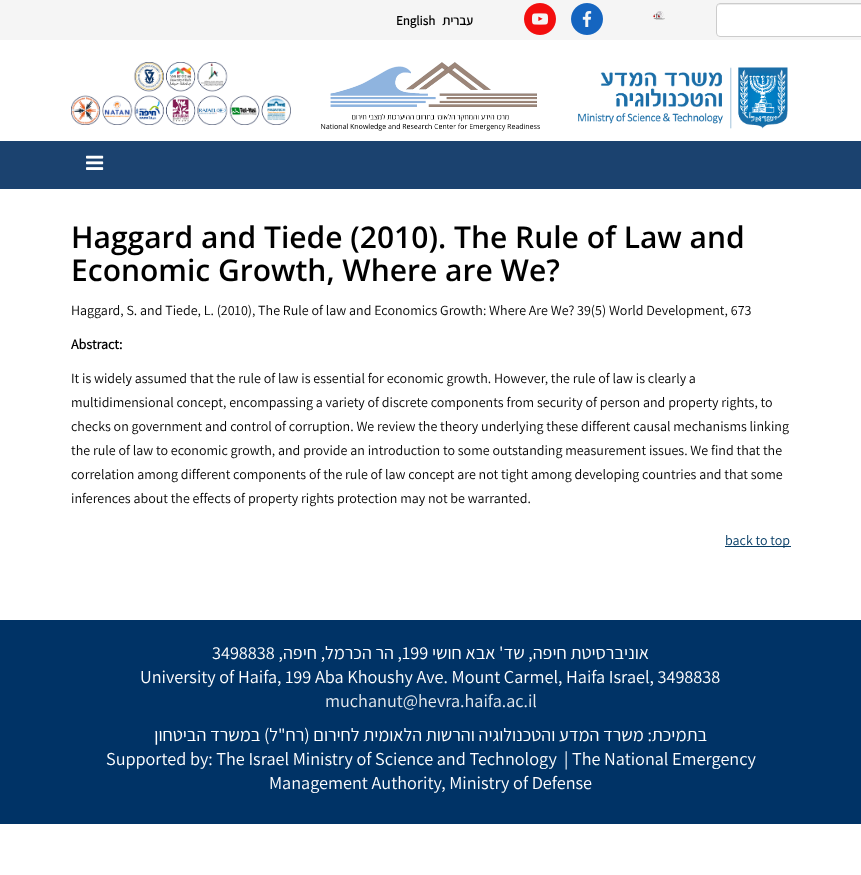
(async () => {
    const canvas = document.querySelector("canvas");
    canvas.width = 861;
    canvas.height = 875;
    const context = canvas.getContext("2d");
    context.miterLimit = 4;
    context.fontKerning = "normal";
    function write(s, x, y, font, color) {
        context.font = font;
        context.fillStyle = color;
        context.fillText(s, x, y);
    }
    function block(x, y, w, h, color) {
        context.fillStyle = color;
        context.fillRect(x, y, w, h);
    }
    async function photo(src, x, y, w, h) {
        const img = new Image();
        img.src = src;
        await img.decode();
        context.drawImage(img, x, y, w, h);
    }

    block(0, 0, 861, 875, "rgb(255, 255, 255)");
    block(0, 0, 861, 40, "rgb(245, 245, 245)");
    write("English", 396, 25, "bold 13px Assistant", "rgb(0, 0, 0)");
    context.direction = "rtl";
    write("עברית", 473, 25, "bold 13px Assistant", "rgb(0, 0, 0)");
    await photo("media/1.png", 524, 3, 32, 32);
    await photo("media/2.png", 571, 3, 32, 32);
    await photo("media/3.png", 653, 11, 12, 9);
    context.fillStyle = "rgb(255, 255, 255)";
    context.beginPath();
    context.roundRect(716, 3, 145, 34, [4, 0, 0, 4]);
    context.fill();
    context.fillStyle = "rgb(236, 236, 236)";
    context.beginPath();
    context.moveTo(720, 5);
    context.lineTo(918, 5);
    context.bezierCurveTo(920, 5, 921, 6, 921, 8);
    context.bezierCurveTo(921, 6, 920, 4, 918, 4);
    context.lineTo(720, 4);
    context.bezierCurveTo(718, 4, 717, 6, 717, 8);
    context.bezierCurveTo(717, 6, 718, 5, 720, 5);
    context.closePath();
    context.fill();
    context.beginPath();
    context.roundRect(716.5, 3.5, 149, 33, 3.5);
    context.strokeStyle = "rgb(204, 204, 204)";
    context.stroke();
    await photo("media/4.png", 71, 62, 220, 63);
    await photo("media/5.png", 321, 62, 219, 69);
    await photo("media/6.png", 578, 67, 210, 62);
    block(0, 141, 861, 48, "rgb(27, 66, 111)");
    await photo("media/7.png", 86, 155, 18, 15);
    context.direction = "ltr";
    write("Haggard and Tiede (2010). The Rule of Law and", 71, 248, "600 30px Open Sans", "rgb(0, 0, 0)");
    write("Economic Growth, Where are We?", 71, 281, "600 30px Open Sans", "rgb(0, 0, 0)");
    write("Haggard, S. and Tiede, L. (2010), The Rule of law and Economics Growth: Where Are We? 39(5) World Development, 673", 71, 315, "200 14px Assistant", "rgb(0, 0, 0)");
    write("Abstract:", 71, 349, "bold 14px Assistant", "rgb(0, 0, 0)");
    write("It is widely assumed that the rule of law is essential for economic growth. However, the rule of law is clearly a", 71, 383, "200 14px Assistant", "rgb(0, 0, 0)");
    write("multidimensional concept, encompassing a variety of discrete components from security of person and property rights, to", 71, 407, "200 14px Assistant", "rgb(0, 0, 0)");
    write("checks on government and control of corruption. We review the theory underlying these different causal mechanisms linking", 71, 431, "200 14px Assistant", "rgb(0, 0, 0)");
    write("the rule of law to economic growth, and provide an introduction to some outstanding measurement issues. We find that the", 71, 455, "200 14px Assistant", "rgb(0, 0, 0)");
    write("correlation among different components of the rule of law concept are not tight among developing countries and that some", 71, 479, "200 14px Assistant", "rgb(0, 0, 0)");
    write("inferences about the effects of property rights protection may not be warranted.", 71, 503, "200 14px Assistant", "rgb(0, 0, 0)");
    block(725, 546, 66, 1, "rgb(5, 60, 101)");
    write("back to top", 725, 545, "200 14px Assistant", "rgb(5, 60, 101)");
    block(0, 620, 861, 204, "rgb(0, 51, 102)");
    write("3498838", 212, 659, "200 18.2px Assistant", "rgb(255, 255, 255)");
    context.direction = "rtl";
    write(", הר הכרמל, חיפה,", 402, 659, "200 18.2px Assistant", "rgb(255, 255, 255)");
    context.direction = "ltr";
    write("199", 402, 659, "200 18.2px Assistant", "rgb(255, 255, 255)");
    context.direction = "rtl";
    write("אוניברסיטת חיפה, שד' אבא חושי", 649, 659, "200 18.2px Assistant", "rgb(255, 255, 255)");
    context.direction = "ltr";
    write("University of Haifa, 199 Aba Khoushy Ave. Mount Carmel, Haifa Israel, 3498838", 140, 683, "200 18.2px Assistant", "rgb(255, 255, 255)");
    write("muchanut@hevra.haifa.ac.il", 325, 707, "200 18.2px Assistant", "rgb(230, 235, 240)");
    context.direction = "rtl";
    write("בתמיכת: משרד המדע והטכנולוגיה והרשות הלאומית לחירום (רח\"ל) במשרד הביטחון", 707, 741, "200 18.2px Assistant", "rgb(255, 255, 255)");
    context.direction = "ltr";
    write("Supported by: The Israel Ministry of Science and Technology", 106, 765, "200 18.2px Assistant", "rgb(255, 255, 255)");
    write("| The National Emergency", 564, 765, "200 18.2px Assistant", "rgb(255, 255, 255)");
    write("Management Authority, Ministry of Defense", 269, 789, "200 18.2px Assistant", "rgb(255, 255, 255)");
})();
